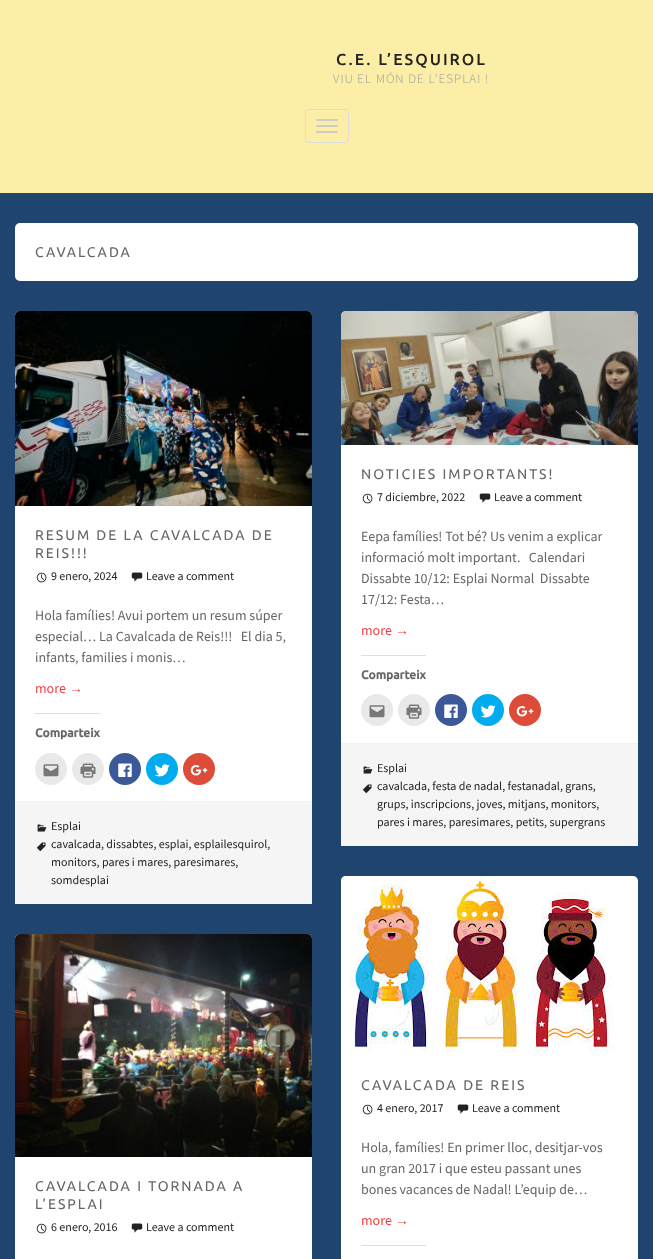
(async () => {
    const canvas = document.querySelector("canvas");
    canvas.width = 653;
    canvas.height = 1259;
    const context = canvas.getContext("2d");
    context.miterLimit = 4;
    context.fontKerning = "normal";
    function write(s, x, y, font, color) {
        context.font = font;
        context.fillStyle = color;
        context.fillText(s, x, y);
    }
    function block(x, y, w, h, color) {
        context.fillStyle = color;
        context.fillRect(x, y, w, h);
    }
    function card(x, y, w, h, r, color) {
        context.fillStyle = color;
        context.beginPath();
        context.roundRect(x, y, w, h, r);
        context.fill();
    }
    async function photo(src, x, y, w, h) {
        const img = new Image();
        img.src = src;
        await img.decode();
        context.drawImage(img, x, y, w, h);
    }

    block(0, 0, 653, 1259, "rgb(31, 69, 110)");
    block(0, 0, 653, 193, "rgb(252, 238, 167)");
    context.letterSpacing = "2px";
    write("C.E. L’ESQUIROL", 336, 65, "500 16px Ubuntu", "rgb(34, 34, 34)");
    context.letterSpacing = "1px";
    write("VIU EL MÓN DE L'ESPLAI !", 333, 83, "300 13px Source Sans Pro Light", "rgb(153, 153, 153)");
    context.beginPath();
    context.roundRect(305.5, 109.5, 43, 33, 3.5);
    context.strokeStyle = "rgb(221, 221, 221)";
    context.stroke();
    card(316, 119, 22, 2, 1, "rgb(204, 204, 204)");
    card(316, 125, 22, 2, 1, "rgb(204, 204, 204)");
    card(316, 131, 22, 2, 1, "rgb(204, 204, 204)");
    card(15, 223, 623, 58, 5, "rgb(255, 255, 255)");
    context.letterSpacing = "2px";
    write("CAVALCADA", 35, 257, "14px Ubuntu", "rgb(102, 102, 102)");
    card(15, 311, 297, 593, 5, "rgb(255, 255, 255)");
    await photo("media/1.png", 15, 311, 297, 195);
    write("RESUM DE LA CAVALCADA DE", 35, 540, "14px Ubuntu", "rgb(102, 102, 102)");
    write("REIS!!!", 35, 558, "14px Ubuntu", "rgb(102, 102, 102)");
    await photo("media/2.png", 36, 572, 11, 11);
    context.letterSpacing = "0px";
    write("9 enero, 2024", 51, 580, "12px Source Sans Pro", "rgb(34, 34, 34)");
    await photo("media/3.png", 131, 572, 12, 10);
    write("Leave a comment", 146, 580, "12px Source Sans Pro", "rgb(34, 34, 34)");
    write("Hola famílies! Avui portem un resum súper", 35, 620, "14px Source Sans Pro", "rgb(102, 102, 102)");
    write("especial… La Cavalcada de Reis!!!   El dia 5,", 35, 641, "14px Source Sans Pro", "rgb(102, 102, 102)");
    write("infants, families i monis…", 35, 662, "14px Source Sans Pro", "rgb(102, 102, 102)");
    write("more", 35, 693, "14px Source Sans Pro", "rgb(239, 63, 66)");
    write("→", 69, 693, "14px Liberation Sans", "rgb(239, 63, 66)");
    block(35, 713, 65, 1, "rgb(221, 221, 221)");
    write("Comparteix", 35, 737, "bold 12px Ubuntu", "rgb(102, 102, 102)");
    context.fillStyle = "rgb(233, 233, 233)";
    context.beginPath();
    context.arc(51, 769, 16, 0, Math.PI * 2);
    context.fill();
    await photo("media/4.png", 43, 764, 16, 13);
    context.beginPath();
    context.arc(88, 769, 16, 0, Math.PI * 2);
    context.fill();
    await photo("media/5.png", 80, 763, 16, 15);
    context.fillStyle = "rgb(59, 89, 152)";
    context.beginPath();
    context.arc(125, 769, 16, 0, Math.PI * 2);
    context.fill();
    await photo("media/6.png", 118, 763, 14, 14);
    context.fillStyle = "rgb(0, 172, 238)";
    context.beginPath();
    context.arc(162, 769, 16, 0, Math.PI * 2);
    context.fill();
    await photo("media/7.png", 154, 764, 16, 13);
    context.fillStyle = "rgb(221, 75, 57)";
    context.beginPath();
    context.arc(199, 769, 16, 0, Math.PI * 2);
    context.fill();
    await photo("media/8.png", 190, 765, 18, 11);
    block(15, 802, 297, 102, "rgb(245, 245, 245)");
    block(15, 801, 297, 1, "rgb(241, 241, 241)");
    await photo("media/9.png", 37, 824, 10, 8);
    write("Esplai", 51, 830, "12px Source Sans Pro", "rgb(34, 34, 34)");
    await photo("media/10.png", 36, 842, 10, 10);
    write("cavalcada, dissabtes, esplai, esplailesquirol,", 51, 848, "12px Source Sans Pro", "rgb(34, 34, 34)");
    write("monitors, pares i mares, paresimares,", 51, 866, "12px Source Sans Pro", "rgb(34, 34, 34)");
    write("somdesplai", 51, 884, "12px Source Sans Pro", "rgb(34, 34, 34)");
    card(341, 311, 297, 535, 5, "rgb(255, 255, 255)");
    await photo("media/11.png", 341, 311, 297, 134);
    context.letterSpacing = "2px";
    write("NOTICIES IMPORTANTS!", 361, 479, "14px Ubuntu", "rgb(102, 102, 102)");
    await photo("media/2.png", 362, 493, 11, 11);
    context.letterSpacing = "0px";
    write("7 diciembre, 2022", 377, 501, "12px Source Sans Pro", "rgb(34, 34, 34)");
    await photo("media/3.png", 479, 493, 12, 10);
    write("Leave a comment", 494, 501, "12px Source Sans Pro", "rgb(34, 34, 34)");
    write("Eepa famílies! Tot bé? Us venim a explicar", 361, 541, "14px Source Sans Pro", "rgb(102, 102, 102)");
    write("informació molt important.   Calendari", 361, 562, "14px Source Sans Pro", "rgb(102, 102, 102)");
    write("Dissabte 10/12: Esplai Normal  Dissabte", 361, 583, "14px Source Sans Pro", "rgb(102, 102, 102)");
    write("17/12: Festa…", 361, 604, "14px Source Sans Pro", "rgb(102, 102, 102)");
    write("more", 361, 635, "14px Source Sans Pro", "rgb(239, 63, 66)");
    write("→", 395, 635, "14px Liberation Sans", "rgb(239, 63, 66)");
    block(361, 655, 65, 1, "rgb(221, 221, 221)");
    write("Comparteix", 361, 679, "bold 12px Ubuntu", "rgb(102, 102, 102)");
    context.fillStyle = "rgb(233, 233, 233)";
    context.beginPath();
    context.arc(377, 710, 16, 0, Math.PI * 2);
    context.fill();
    await photo("media/4.png", 369, 705, 16, 13);
    context.beginPath();
    context.arc(414, 710, 16, 0, Math.PI * 2);
    context.fill();
    await photo("media/5.png", 406, 704, 16, 15);
    context.fillStyle = "rgb(59, 89, 152)";
    context.beginPath();
    context.arc(451, 710, 16, 0, Math.PI * 2);
    context.fill();
    await photo("media/6.png", 444, 704, 14, 14);
    context.fillStyle = "rgb(0, 172, 238)";
    context.beginPath();
    context.arc(488, 710, 16, 0, Math.PI * 2);
    context.fill();
    await photo("media/7.png", 480, 705, 16, 13);
    context.fillStyle = "rgb(221, 75, 57)";
    context.beginPath();
    context.arc(525, 710, 16, 0, Math.PI * 2);
    context.fill();
    await photo("media/8.png", 516, 706, 18, 11);
    block(341, 744, 297, 102, "rgb(245, 245, 245)");
    block(341, 743, 297, 1, "rgb(241, 241, 241)");
    await photo("media/9.png", 363, 766, 10, 8);
    write("Esplai", 377, 772, "12px Source Sans Pro", "rgb(34, 34, 34)");
    await photo("media/10.png", 362, 784, 10, 10);
    write("cavalcada, festa de nadal, festanadal, grans,", 377, 790, "12px Source Sans Pro", "rgb(34, 34, 34)");
    write("grups, inscripcions, joves, mitjans, monitors,", 377, 808, "12px Source Sans Pro", "rgb(34, 34, 34)");
    write("pares i mares, paresimares, petits, supergrans", 377, 826, "12px Source Sans Pro", "rgb(34, 34, 34)");
    card(15, 934, 297, 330, 5, "rgb(255, 255, 255)");
    await photo("media/12.png", 15, 934, 297, 223);
    context.letterSpacing = "2px";
    write("CAVALCADA I TORNADA A", 35, 1191, "14px Ubuntu", "rgb(102, 102, 102)");
    write("L’ESPLAI", 35, 1209, "14px Ubuntu", "rgb(102, 102, 102)");
    await photo("media/2.png", 36, 1223, 11, 11);
    context.letterSpacing = "0px";
    write("6 enero, 2016", 51, 1231, "12px Source Sans Pro", "rgb(34, 34, 34)");
    await photo("media/3.png", 131, 1223, 12, 10);
    write("Leave a comment", 146, 1231, "12px Source Sans Pro", "rgb(34, 34, 34)");
    card(341, 876, 297, 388, 5, "rgb(255, 255, 255)");
    await photo("media/13.png", 341, 876, 272, 176);
    context.letterSpacing = "2px";
    write("CAVALCADA DE REIS", 361, 1090, "14px Ubuntu", "rgb(102, 102, 102)");
    await photo("media/2.png", 362, 1104, 11, 11);
    context.letterSpacing = "0px";
    write("4 enero, 2017", 377, 1112, "12px Source Sans Pro", "rgb(34, 34, 34)");
    await photo("media/3.png", 457, 1104, 12, 10);
    write("Leave a comment", 472, 1112, "12px Source Sans Pro", "rgb(34, 34, 34)");
    write("Hola, famílies! En primer lloc, desitjar-vos", 361, 1152, "14px Source Sans Pro", "rgb(102, 102, 102)");
    write("un gran 2017 i que esteu passant unes", 361, 1173, "14px Source Sans Pro", "rgb(102, 102, 102)");
    write("bones vacances de Nadal! L’equip de…", 361, 1194, "14px Source Sans Pro", "rgb(102, 102, 102)");
    write("more", 361, 1225, "14px Source Sans Pro", "rgb(239, 63, 66)");
    write("→", 395, 1225, "14px Liberation Sans", "rgb(239, 63, 66)");
    block(361, 1245, 65, 1, "rgb(221, 221, 221)");
})();
